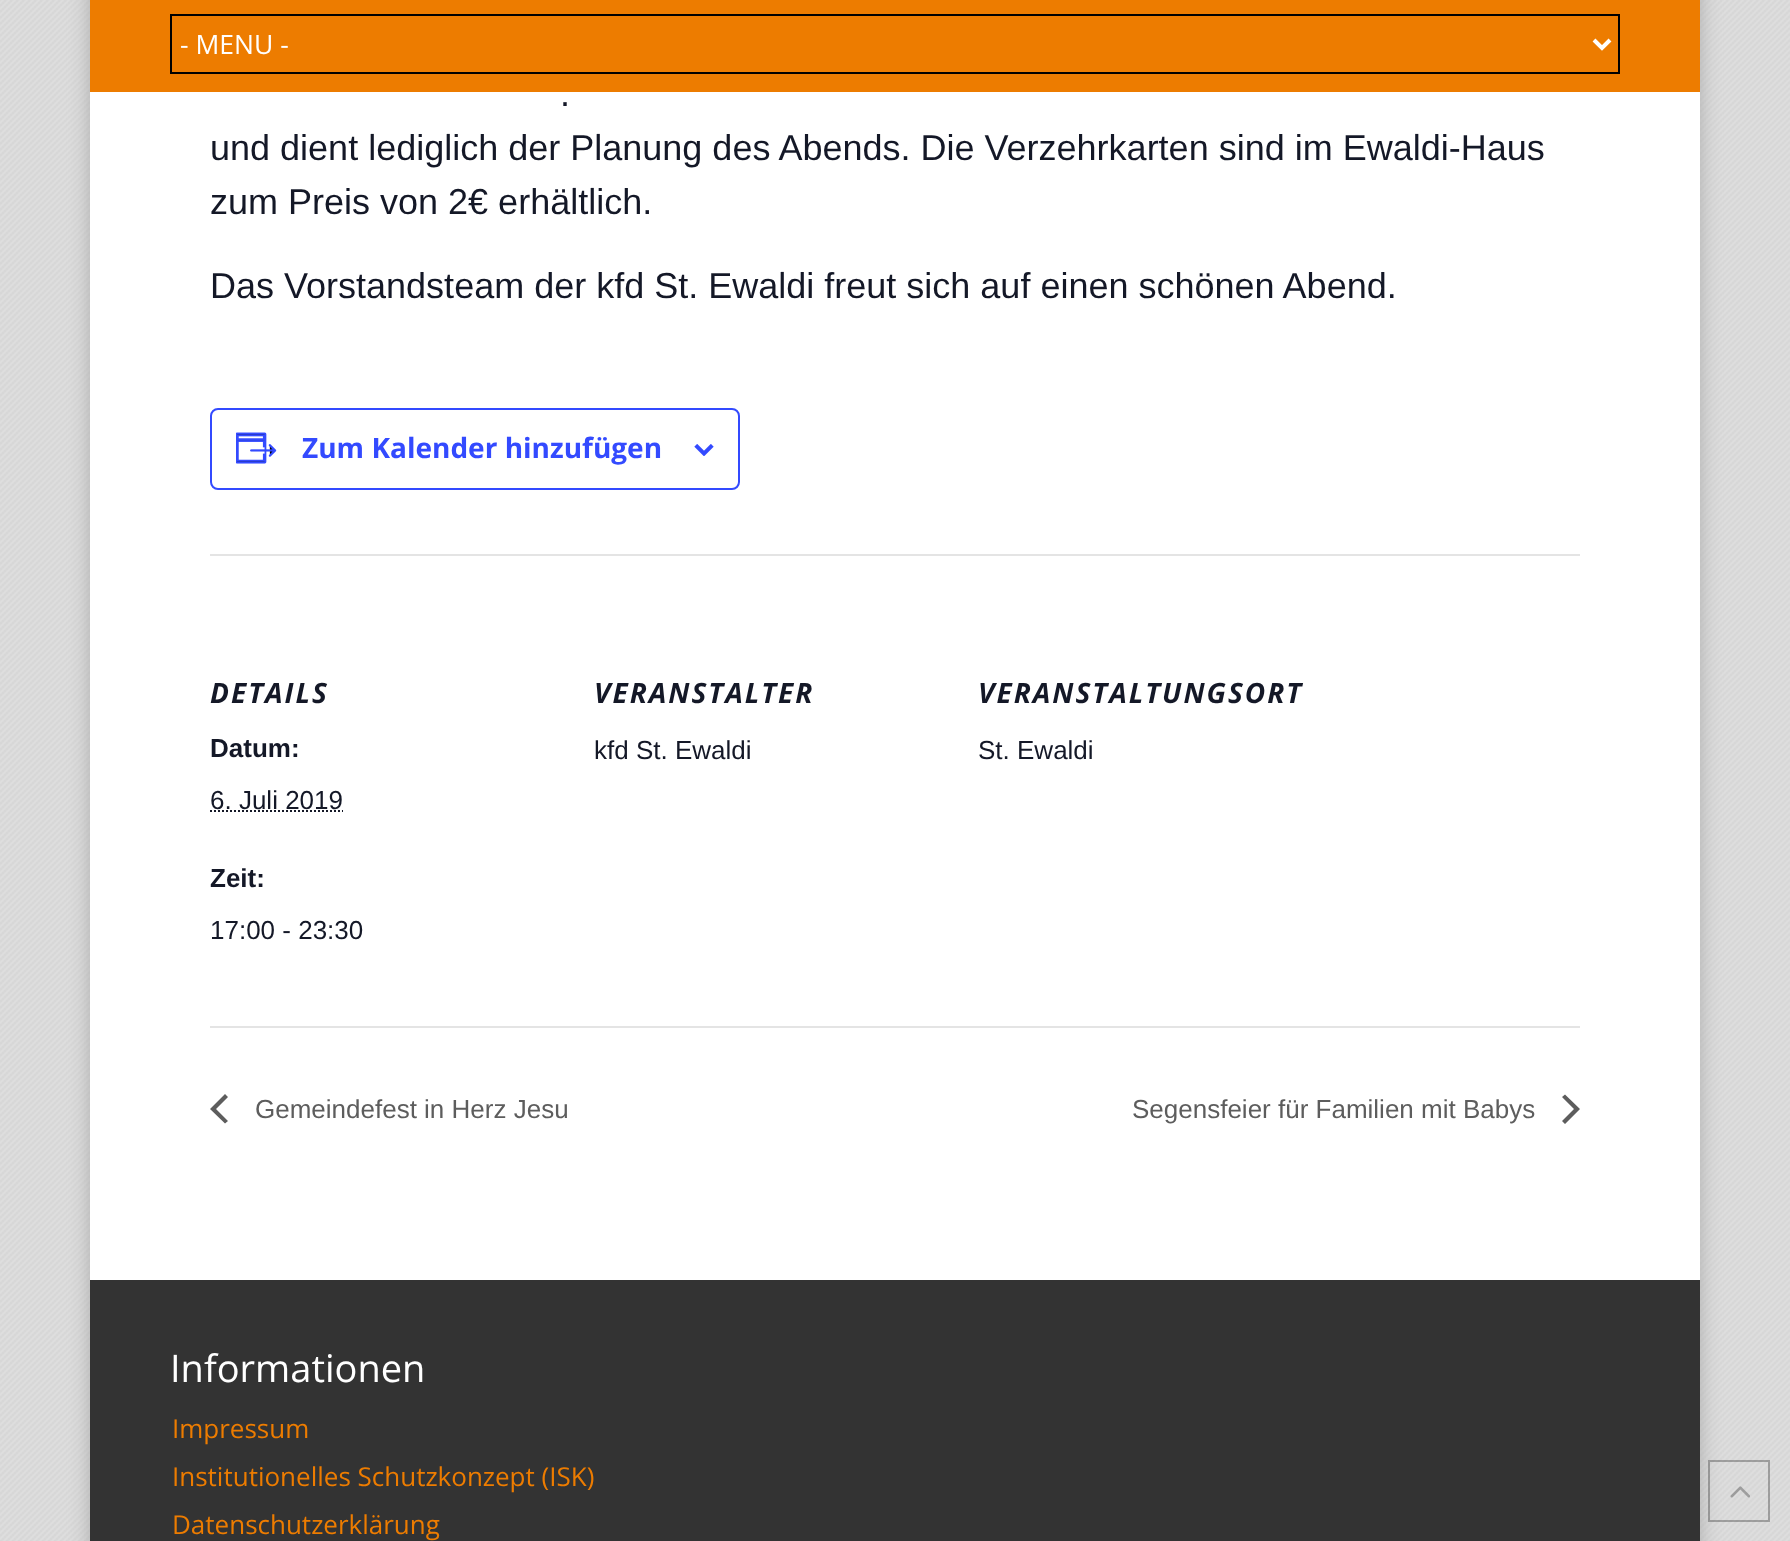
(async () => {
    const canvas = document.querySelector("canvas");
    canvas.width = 1790;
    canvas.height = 1541;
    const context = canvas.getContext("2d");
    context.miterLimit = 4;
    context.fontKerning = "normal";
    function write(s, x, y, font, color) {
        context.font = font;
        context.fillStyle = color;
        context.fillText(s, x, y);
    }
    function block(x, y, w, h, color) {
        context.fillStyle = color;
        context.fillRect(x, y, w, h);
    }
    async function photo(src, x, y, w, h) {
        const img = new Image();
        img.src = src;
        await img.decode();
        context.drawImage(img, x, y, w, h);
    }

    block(0, 0, 1790, 1541, "rgb(222, 222, 222)");
    await photo("media/1.png", 0, 0, 1790, 1541);
    context.fillStyle = "rgb(170, 170, 170)";
    context.filter = "blur(10px)";
    context.beginPath();
    context.rect(90, -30, 1610, 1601);
    context.fill();
    context.filter = "none";
    block(90, 92, 1610, 1188, "rgb(255, 255, 255)");
    block(90, 0, 1610, 92, "rgb(237, 124, 0)");
    context.strokeStyle = "rgb(0, 0, 0)";
    context.lineWidth = 2;
    context.strokeRect(171, 15, 1448, 58);
    context.beginPath();
    context.moveTo(1594, 40);
    context.lineTo(1602, 48);
    context.lineTo(1610, 40);
    context.strokeStyle = "rgb(255, 255, 255)";
    context.lineWidth = 4;
    context.stroke();
    write("- MENU -", 180, 54, "26.5px Open Sans", "rgb(255, 255, 255)");
    write(".", 560, 106, "36px Liberation Sans", "rgb(20, 24, 39)");
    write("und dient lediglich der Planung des Abends. Die Verzehrkarten sind im Ewaldi-Haus", 210, 160, "36px Liberation Sans", "rgb(20, 24, 39)");
    write("zum Preis von 2€ erhältlich.", 210, 214, "36px Liberation Sans", "rgb(20, 24, 39)");
    write("Das Vorstandsteam der kfd St. Ewaldi freut sich auf einen schönen Abend.", 210, 298, "36px Liberation Sans", "rgb(20, 24, 39)");
    context.beginPath();
    context.roundRect(211, 409, 528, 80, 7);
    context.strokeStyle = "rgb(51, 74, 255)";
    context.lineWidth = 2;
    context.stroke();
    await photo("media/2.png", 236, 432, 41, 32);
    write("Zum Kalender hinzufügen", 302, 458, "bold 28px Open Sans", "rgb(51, 74, 255)");
    await photo("media/3.png", 694, 444, 20, 12);
    block(210, 554, 1370, 2, "rgb(228, 228, 228)");
    context.letterSpacing = "2px";
    write("DETAILS", 210, 703, "italic bold 28px Open Sans", "rgb(20, 24, 39)");
    context.letterSpacing = "0px";
    write("Datum:", 210, 757, "bold 26px Liberation Sans", "rgb(20, 24, 39)");
    write("6. Juli 2019", 210, 809, "26px Liberation Sans", "rgb(20, 24, 39)");
    context.beginPath();
    context.moveTo(210, 811);
    context.lineTo(343, 811);
    context.strokeStyle = "rgb(20, 24, 39)";
    context.setLineDash([2, 2]);
    context.stroke();
    write("Zeit:", 210, 887, "bold 26px Liberation Sans", "rgb(20, 24, 39)");
    write("17:00 - 23:30", 210, 939, "26px Liberation Sans", "rgb(20, 24, 39)");
    context.letterSpacing = "2px";
    write("VERANSTALTER", 594, 703, "italic bold 28px Open Sans", "rgb(20, 24, 39)");
    context.letterSpacing = "0px";
    write("kfd St. Ewaldi", 594, 759, "26px Liberation Sans", "rgb(20, 24, 39)");
    context.letterSpacing = "2px";
    write("VERANSTALTUNGSORT", 978, 703, "italic bold 28px Open Sans", "rgb(20, 24, 39)");
    context.letterSpacing = "0px";
    write("St. Ewaldi", 978, 759, "26px Liberation Sans", "rgb(20, 24, 39)");
    block(210, 1026, 1370, 2, "rgb(228, 228, 228)");
    context.fillStyle = "rgb(93, 93, 93)";
    context.beginPath();
    context.moveTo(228, 1121);
    context.lineTo(225, 1123.5);
    context.lineTo(210, 1109);
    context.lineTo(225, 1094);
    context.lineTo(228, 1097);
    context.lineTo(216, 1109);
    context.closePath();
    context.fill();
    write("Gemeindefest in Herz Jesu", 255, 1118, "26px Liberation Sans", "rgb(93, 93, 93)");
    write("Segensfeier für Familien mit Babys", 1132, 1118, "26px Liberation Sans", "rgb(93, 93, 93)");
    context.beginPath();
    context.moveTo(1562, 1097);
    context.lineTo(1565, 1094.5);
    context.lineTo(1580, 1109);
    context.lineTo(1565, 1124);
    context.lineTo(1562, 1121);
    context.lineTo(1574, 1109);
    context.closePath();
    context.fill();
    block(90, 1280, 1610, 261, "rgb(51, 51, 51)");
    write("Informationen", 170, 1382, "38px Open Sans", "rgb(255, 255, 255)");
    write("Impressum", 172, 1438, "26px Open Sans", "rgb(237, 124, 0)");
    write("Institutionelles Schutzkonzept (ISK)", 172, 1486, "26px Open Sans", "rgb(237, 124, 0)");
    write("Datenschutzerklärung", 172, 1534, "26px Open Sans", "rgb(237, 124, 0)");
    context.strokeStyle = "rgba(17, 17, 17, 0.3)";
    context.setLineDash([]);
    context.strokeRect(1709, 1461, 60, 60);
    await photo("media/4.png", 1730, 1486, 20, 12);
})();
